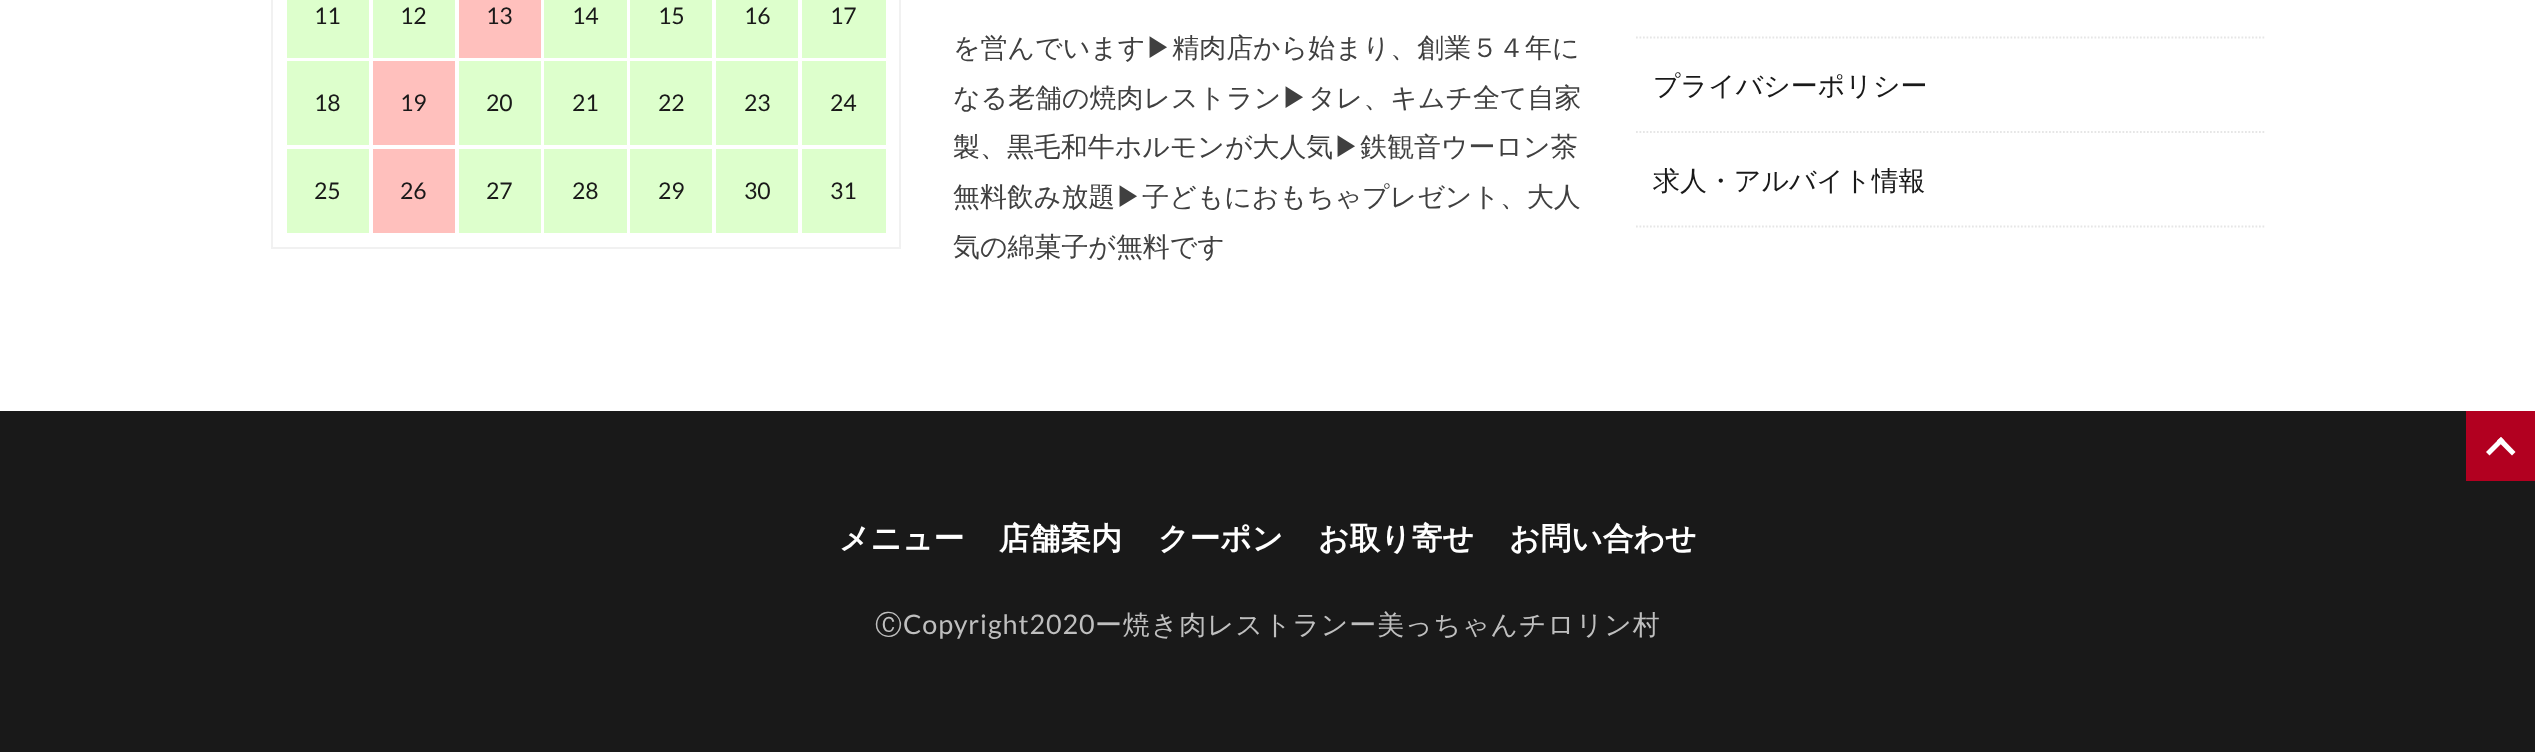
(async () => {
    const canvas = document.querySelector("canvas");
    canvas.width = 2535;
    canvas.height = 752;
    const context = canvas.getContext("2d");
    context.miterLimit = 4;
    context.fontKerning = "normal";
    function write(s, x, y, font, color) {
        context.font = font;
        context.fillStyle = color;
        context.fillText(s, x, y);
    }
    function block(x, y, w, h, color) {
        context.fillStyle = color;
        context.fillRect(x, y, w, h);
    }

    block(0, 0, 2535, 752, "rgb(255, 255, 255)");
    context.strokeStyle = "rgb(241, 241, 241)";
    context.lineWidth = 2;
    context.strokeRect(272, -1, 628, 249);
    block(287, 0, 82, 58, "rgb(221, 255, 204)");
    write("11", 314, 24, "23px Lato", "rgb(25, 25, 25)");
    block(373, 0, 82, 58, "rgb(221, 255, 204)");
    write("12", 400, 24, "23px Lato", "rgb(25, 25, 25)");
    block(459, 0, 82, 58, "rgb(255, 192, 189)");
    write("13", 486, 24, "23px Lato", "rgb(25, 25, 25)");
    block(544, 0, 83, 58, "rgb(221, 255, 204)");
    write("14", 572, 24, "23px Lato", "rgb(25, 25, 25)");
    block(630, 0, 82, 58, "rgb(221, 255, 204)");
    write("15", 658, 24, "23px Lato", "rgb(25, 25, 25)");
    block(716, 0, 82, 58, "rgb(221, 255, 204)");
    write("16", 744, 24, "23px Lato", "rgb(25, 25, 25)");
    block(802, 0, 84, 58, "rgb(221, 255, 204)");
    write("17", 830, 24, "23px Lato", "rgb(25, 25, 25)");
    block(287, 61, 82, 84, "rgb(221, 255, 204)");
    write("18", 314, 111, "23px Lato", "rgb(25, 25, 25)");
    block(373, 61, 82, 84, "rgb(255, 192, 189)");
    write("19", 400, 111, "23px Lato", "rgb(25, 25, 25)");
    block(459, 61, 82, 84, "rgb(221, 255, 204)");
    write("20", 486, 111, "23px Lato", "rgb(25, 25, 25)");
    block(544, 61, 83, 84, "rgb(221, 255, 204)");
    write("21", 572, 111, "23px Lato", "rgb(25, 25, 25)");
    block(630, 61, 82, 84, "rgb(221, 255, 204)");
    write("22", 658, 111, "23px Lato", "rgb(25, 25, 25)");
    block(716, 61, 82, 84, "rgb(221, 255, 204)");
    write("23", 744, 111, "23px Lato", "rgb(25, 25, 25)");
    block(802, 61, 84, 84, "rgb(221, 255, 204)");
    write("24", 830, 111, "23px Lato", "rgb(25, 25, 25)");
    block(287, 149, 82, 84, "rgb(221, 255, 204)");
    write("25", 314, 199, "23px Lato", "rgb(25, 25, 25)");
    block(373, 149, 82, 84, "rgb(255, 192, 189)");
    write("26", 400, 199, "23px Lato", "rgb(25, 25, 25)");
    block(459, 149, 82, 84, "rgb(221, 255, 204)");
    write("27", 486, 199, "23px Lato", "rgb(25, 25, 25)");
    block(544, 149, 83, 84, "rgb(221, 255, 204)");
    write("28", 572, 199, "23px Lato", "rgb(25, 25, 25)");
    block(630, 149, 82, 84, "rgb(221, 255, 204)");
    write("29", 658, 199, "23px Lato", "rgb(25, 25, 25)");
    block(716, 149, 82, 84, "rgb(221, 255, 204)");
    write("30", 744, 199, "23px Lato", "rgb(25, 25, 25)");
    block(802, 149, 84, 84, "rgb(221, 255, 204)");
    write("31", 830, 199, "23px Lato", "rgb(25, 25, 25)");
    write("を営んでいます▶精肉店から始まり、創業５４年に", 953, 57, "500 26.95px WenQuanYi Zen Hei", "rgb(64, 64, 64)");
    write("なる老舗の焼肉レストラン▶タレ、キムチ全て自家", 953, 107, "500 26.95px WenQuanYi Zen Hei", "rgb(64, 64, 64)");
    write("製、黒毛和牛ホルモンが大人気▶鉄観音ウーロン茶", 953, 156, "500 26.95px WenQuanYi Zen Hei", "rgb(64, 64, 64)");
    write("無料飲み放題▶子どもにおもちゃプレゼント、大人", 953, 206, "500 26.95px WenQuanYi Zen Hei", "rgb(64, 64, 64)");
    write("気の綿菓子が無料です", 953, 256, "500 26.95px WenQuanYi Zen Hei", "rgb(64, 64, 64)");
    context.beginPath();
    context.moveTo(1636, 37.5);
    context.lineTo(2266, 37.5);
    context.strokeStyle = "rgb(230, 230, 230)";
    context.lineWidth = 1.8;
    context.setLineDash([1.75, 1.75]);
    context.stroke();
    context.beginPath();
    context.moveTo(1636, 132);
    context.lineTo(2266, 132);
    context.stroke();
    write("プライバシーポリシー", 1653, 95, "500 26.95px WenQuanYi Zen Hei", "rgb(25, 25, 25)");
    context.beginPath();
    context.moveTo(1636, 226.5);
    context.lineTo(2266, 226.5);
    context.stroke();
    write("求人・アルバイト情報", 1653, 190, "500 26.95px WenQuanYi Zen Hei", "rgb(25, 25, 25)");
    block(0, 411, 2535, 341, "rgb(25, 25, 25)");
    block(2466, 411, 69, 70, "rgb(178, 0, 32)");
    context.fillStyle = "rgb(255, 255, 255)";
    context.beginPath();
    context.moveTo(2486, 452);
    context.lineTo(2501, 437);
    context.lineTo(2504.5, 440.5);
    context.lineTo(2489.5, 455.5);
    context.closePath();
    context.fill();
    context.beginPath();
    context.moveTo(2497, 440.5);
    context.lineTo(2501, 437);
    context.lineTo(2515.5, 452);
    context.lineTo(2512, 455.5);
    context.closePath();
    context.fill();
    write("メニュー", 839, 549, "bold 30.75px WenQuanYi Zen Hei", "rgb(255, 255, 255)");
    write("店舗案内", 999, 549, "bold 30.75px WenQuanYi Zen Hei", "rgb(255, 255, 255)");
    write("クーポン", 1158, 549, "bold 30.75px WenQuanYi Zen Hei", "rgb(255, 255, 255)");
    write("お取り寄せ", 1318, 549, "bold 30.75px WenQuanYi Zen Hei", "rgb(255, 255, 255)");
    write("お問い合わせ", 1509, 549, "bold 30.75px WenQuanYi Zen Hei", "rgb(255, 255, 255)");
    context.letterSpacing = "0.9px";
    write("Ⓒ", 875, 634, "500 26.95px WenQuanYi Zen Hei", "rgb(191, 191, 191)");
    write("Copyright2020", 903, 634, "26.95px Lato", "rgb(191, 191, 191)");
    write("ー焼き肉レストランー美っちゃんチロリン村", 1095, 634, "500 26.95px WenQuanYi Zen Hei", "rgb(191, 191, 191)");
})();
